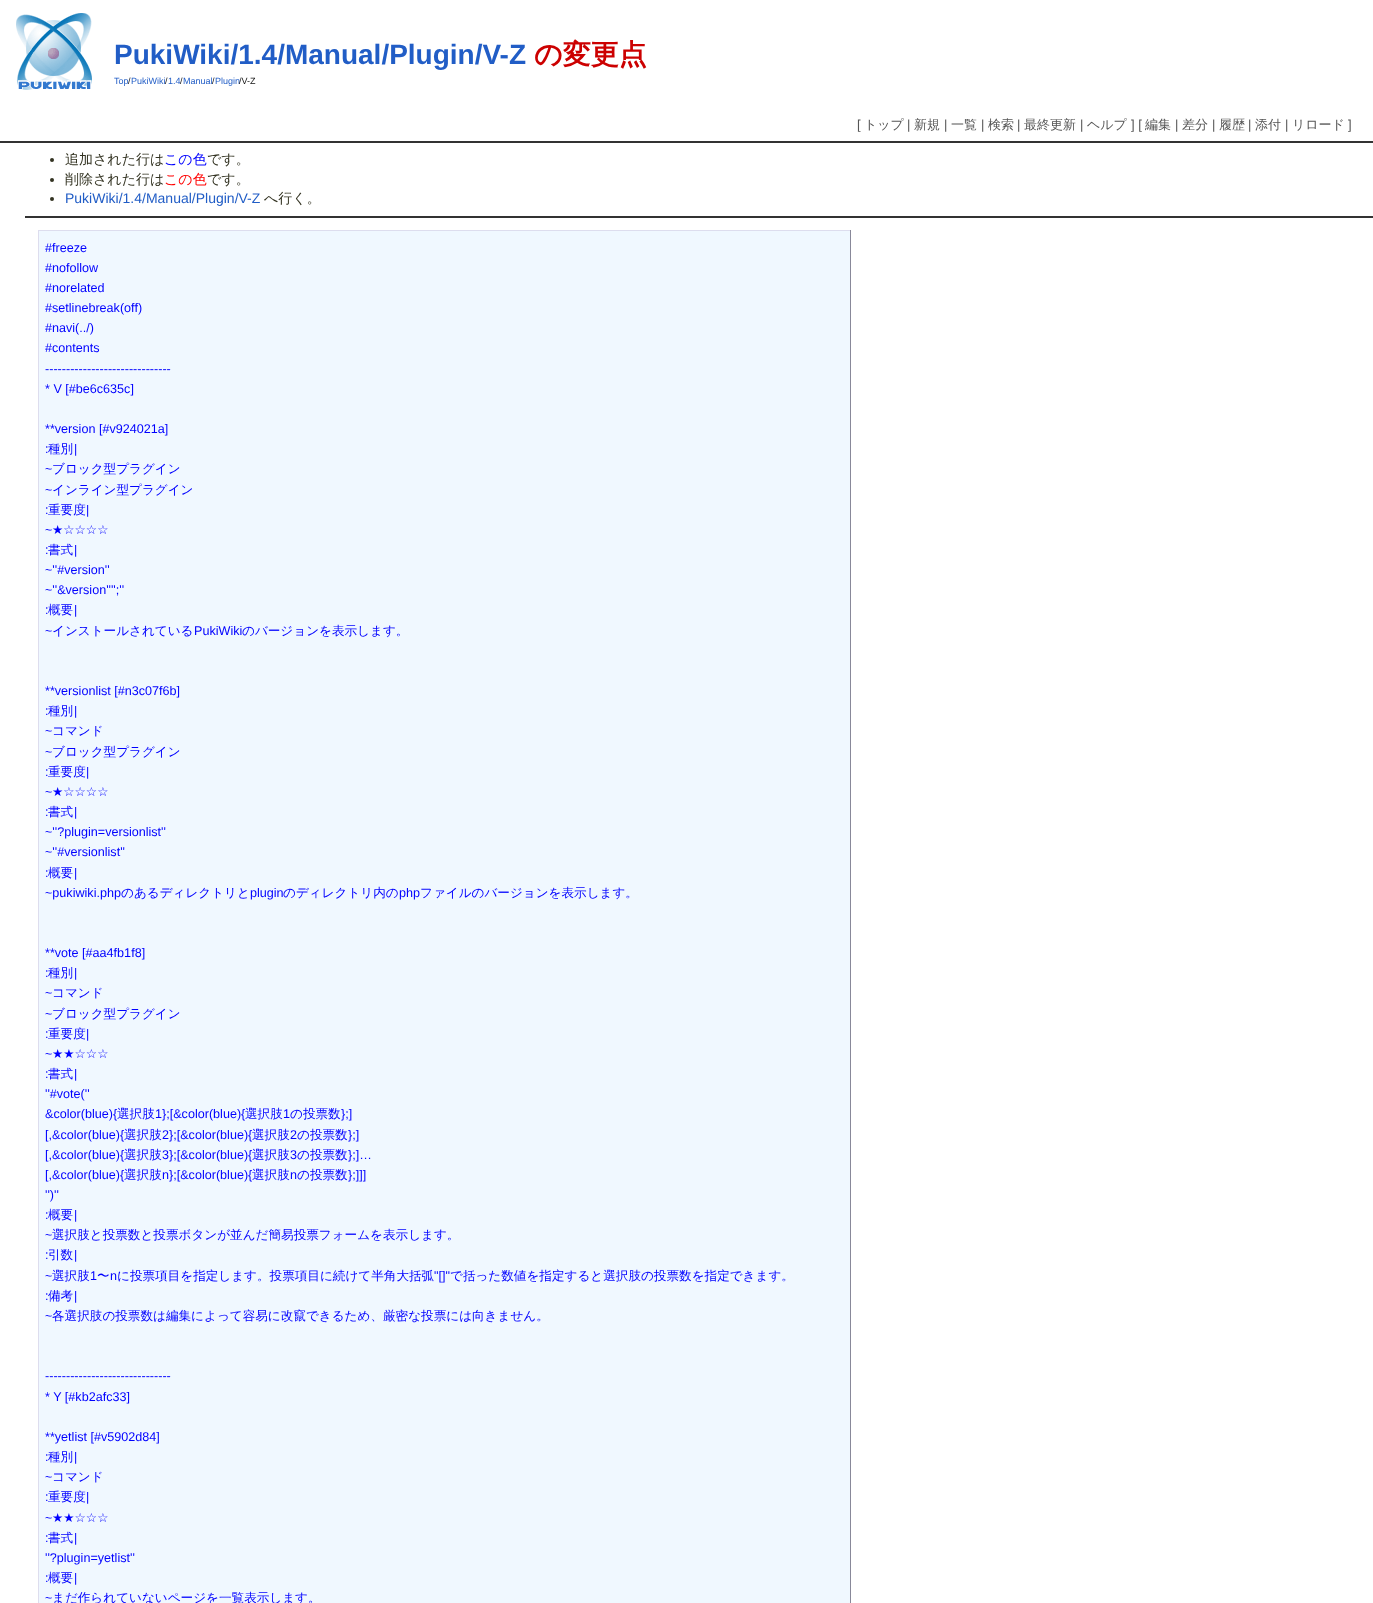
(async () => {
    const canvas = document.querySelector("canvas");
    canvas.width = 1373;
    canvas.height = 1603;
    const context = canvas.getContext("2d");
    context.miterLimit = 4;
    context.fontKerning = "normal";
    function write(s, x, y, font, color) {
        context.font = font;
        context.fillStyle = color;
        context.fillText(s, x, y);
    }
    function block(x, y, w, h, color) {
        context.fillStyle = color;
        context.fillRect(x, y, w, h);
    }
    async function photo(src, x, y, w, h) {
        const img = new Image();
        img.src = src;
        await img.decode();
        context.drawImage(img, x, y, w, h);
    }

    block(0, 0, 1373, 1603, "rgb(255, 255, 255)");
    await photo("media/1.png", 16, 13, 76, 77);
    write("PukiWiki/1.4/Manual/Plugin/V-Z", 114, 64, "bold 28px Liberation Sans", "rgb(33, 93, 198)");
    write("の変更点", 534, 64, "bold 28px WenQuanYi Zen Hei", "rgb(204, 0, 0)");
    write("Top PukiWiki 1.4 Manual Plugin", 114, 84, "9px Liberation Sans", "rgb(33, 93, 198)");
    write("/", 128, 84, "9px Liberation Sans", "rgb(17, 17, 17)");
    write("/", 165, 84, "9px Liberation Sans", "rgb(17, 17, 17)");
    write("/", 180, 84, "9px Liberation Sans", "rgb(17, 17, 17)");
    write("/", 212, 84, "9px Liberation Sans", "rgb(17, 17, 17)");
    write("/V-Z", 239, 84, "9px Liberation Sans", "rgb(17, 17, 17)");
    write("[", 857, 129, "13px Liberation Sans", "rgb(85, 85, 85)");
    write("トップ", 864, 129, "500 13px WenQuanYi Zen Hei", "rgb(85, 85, 85)");
    write("|", 907, 129, "13px Liberation Sans", "rgb(85, 85, 85)");
    write("新規", 914, 129, "500 13px WenQuanYi Zen Hei", "rgb(85, 85, 85)");
    write("|", 944, 129, "13px Liberation Sans", "rgb(85, 85, 85)");
    write("一覧", 951, 129, "500 13px WenQuanYi Zen Hei", "rgb(85, 85, 85)");
    write("|", 981, 129, "13px Liberation Sans", "rgb(85, 85, 85)");
    write("検索", 988, 129, "500 13px WenQuanYi Zen Hei", "rgb(85, 85, 85)");
    write("|", 1017, 129, "13px Liberation Sans", "rgb(85, 85, 85)");
    write("最終更新", 1024, 129, "500 13px WenQuanYi Zen Hei", "rgb(85, 85, 85)");
    write("|", 1080, 129, "13px Liberation Sans", "rgb(85, 85, 85)");
    write("ヘルプ", 1087, 129, "500 13px WenQuanYi Zen Hei", "rgb(85, 85, 85)");
    write("] [", 1131, 129, "13px Liberation Sans", "rgb(85, 85, 85)");
    write("編集", 1145, 129, "500 13px WenQuanYi Zen Hei", "rgb(85, 85, 85)");
    write("|", 1175, 129, "13px Liberation Sans", "rgb(85, 85, 85)");
    write("差分", 1182, 129, "500 13px WenQuanYi Zen Hei", "rgb(85, 85, 85)");
    write("|", 1212, 129, "13px Liberation Sans", "rgb(85, 85, 85)");
    write("履歴", 1219, 129, "500 13px WenQuanYi Zen Hei", "rgb(85, 85, 85)");
    write("|", 1248, 129, "13px Liberation Sans", "rgb(85, 85, 85)");
    write("添付", 1255, 129, "500 13px WenQuanYi Zen Hei", "rgb(85, 85, 85)");
    write("|", 1285, 129, "13px Liberation Sans", "rgb(85, 85, 85)");
    write("リロード", 1292, 129, "500 13px WenQuanYi Zen Hei", "rgb(85, 85, 85)");
    write("]", 1348, 129, "13px Liberation Sans", "rgb(85, 85, 85)");
    block(0, 141, 1373, 2, "rgb(51, 51, 51)");
    context.fillStyle = "rgb(51, 51, 34)";
    context.beginPath();
    context.arc(52, 160, 2, 0, Math.PI * 2);
    context.fill();
    write("追加された行は", 65, 164, "500 14px WenQuanYi Zen Hei", "rgb(51, 51, 34)");
    write("この色", 164, 164, "500 14px WenQuanYi Zen Hei", "rgb(0, 0, 255)");
    write("です。", 207, 164, "500 14px WenQuanYi Zen Hei", "rgb(51, 51, 34)");
    context.beginPath();
    context.arc(52, 180, 2, 0, Math.PI * 2);
    context.fill();
    write("削除された行は", 65, 184, "500 14px WenQuanYi Zen Hei", "rgb(51, 51, 34)");
    write("この色", 164, 184, "500 14px WenQuanYi Zen Hei", "rgb(255, 0, 0)");
    write("です。", 207, 184, "500 14px WenQuanYi Zen Hei", "rgb(51, 51, 34)");
    context.beginPath();
    context.arc(52, 199, 2, 0, Math.PI * 2);
    context.fill();
    write("PukiWiki/1.4/Manual/Plugin/V-Z", 65, 203, "14px Liberation Sans", "rgb(33, 93, 198)");
    write("へ行く。", 264, 203, "500 14px WenQuanYi Zen Hei", "rgb(51, 51, 34)");
    block(25, 216, 1348, 2, "rgb(51, 51, 51)");
    block(39, 231, 811, 1372, "rgb(240, 248, 255)");
    block(38, 230, 813, 1, "rgb(221, 221, 238)");
    block(850, 230, 1, 1373, "rgb(136, 136, 153)");
    block(38, 230, 1, 1373, "rgb(221, 221, 238)");
    write("#freeze", 45, 252, "12.6px Liberation Sans", "rgb(0, 0, 255)");
    write("#nofollow", 45, 272, "12.6px Liberation Sans", "rgb(0, 0, 255)");
    write("#norelated", 45, 292, "12.6px Liberation Sans", "rgb(0, 0, 255)");
    write("#setlinebreak(off)", 45, 312, "12.6px Liberation Sans", "rgb(0, 0, 255)");
    write("#navi(../)", 45, 332, "12.6px Liberation Sans", "rgb(0, 0, 255)");
    write("#contents", 45, 352, "12.6px Liberation Sans", "rgb(0, 0, 255)");
    write("------------------------------", 45, 373, "12.6px Liberation Sans", "rgb(0, 0, 255)");
    write("* V [#be6c635c]", 45, 393, "12.6px Liberation Sans", "rgb(0, 0, 255)");
    write("**version [#v924021a]", 45, 433, "12.6px Liberation Sans", "rgb(0, 0, 255)");
    write(":", 45, 453, "12.6px Liberation Sans", "rgb(0, 0, 255)");
    write("種別", 48, 453, "500 12.6px WenQuanYi Zen Hei", "rgb(0, 0, 255)");
    write("|", 74, 453, "12.6px Liberation Sans", "rgb(0, 0, 255)");
    write("~", 45, 473, "12.6px Liberation Sans", "rgb(0, 0, 255)");
    write("ブロック型プラグイン", 52, 473, "500 12.6px WenQuanYi Zen Hei", "rgb(0, 0, 255)");
    write("~", 45, 494, "12.6px Liberation Sans", "rgb(0, 0, 255)");
    write("インライン型プラグイン", 52, 494, "500 12.6px WenQuanYi Zen Hei", "rgb(0, 0, 255)");
    write(":", 45, 514, "12.6px Liberation Sans", "rgb(0, 0, 255)");
    write("重要度", 48, 514, "500 12.6px WenQuanYi Zen Hei", "rgb(0, 0, 255)");
    write("|", 86, 514, "12.6px Liberation Sans", "rgb(0, 0, 255)");
    write("~", 45, 534, "12.6px Liberation Sans", "rgb(0, 0, 255)");
    write("★☆☆☆☆", 52, 534, "12.6px DejaVu Sans", "rgb(0, 0, 255)");
    write(":", 45, 554, "12.6px Liberation Sans", "rgb(0, 0, 255)");
    write("書式", 48, 554, "500 12.6px WenQuanYi Zen Hei", "rgb(0, 0, 255)");
    write("|", 74, 554, "12.6px Liberation Sans", "rgb(0, 0, 255)");
    write("~''#version''", 45, 574, "12.6px Liberation Sans", "rgb(0, 0, 255)");
    write("~''&version'''';''", 45, 594, "12.6px Liberation Sans", "rgb(0, 0, 255)");
    write(":", 45, 614, "12.6px Liberation Sans", "rgb(0, 0, 255)");
    write("概要", 48, 614, "500 12.6px WenQuanYi Zen Hei", "rgb(0, 0, 255)");
    write("|", 74, 614, "12.6px Liberation Sans", "rgb(0, 0, 255)");
    write("~", 45, 635, "12.6px Liberation Sans", "rgb(0, 0, 255)");
    write("インストールされている", 52, 635, "500 12.6px WenQuanYi Zen Hei", "rgb(0, 0, 255)");
    write("PukiWiki", 194, 635, "12.6px Liberation Sans", "rgb(0, 0, 255)");
    write("のバージョンを表示します。", 242, 635, "500 12.6px WenQuanYi Zen Hei", "rgb(0, 0, 255)");
    write("**versionlist [#n3c07f6b]", 45, 695, "12.6px Liberation Sans", "rgb(0, 0, 255)");
    write(":", 45, 715, "12.6px Liberation Sans", "rgb(0, 0, 255)");
    write("種別", 48, 715, "500 12.6px WenQuanYi Zen Hei", "rgb(0, 0, 255)");
    write("|", 74, 715, "12.6px Liberation Sans", "rgb(0, 0, 255)");
    write("~", 45, 735, "12.6px Liberation Sans", "rgb(0, 0, 255)");
    write("コマンド", 52, 735, "500 12.6px WenQuanYi Zen Hei", "rgb(0, 0, 255)");
    write("~", 45, 756, "12.6px Liberation Sans", "rgb(0, 0, 255)");
    write("ブロック型プラグイン", 52, 756, "500 12.6px WenQuanYi Zen Hei", "rgb(0, 0, 255)");
    write(":", 45, 776, "12.6px Liberation Sans", "rgb(0, 0, 255)");
    write("重要度", 48, 776, "500 12.6px WenQuanYi Zen Hei", "rgb(0, 0, 255)");
    write("|", 86, 776, "12.6px Liberation Sans", "rgb(0, 0, 255)");
    write("~", 45, 796, "12.6px Liberation Sans", "rgb(0, 0, 255)");
    write("★☆☆☆☆", 52, 796, "12.6px DejaVu Sans", "rgb(0, 0, 255)");
    write(":", 45, 816, "12.6px Liberation Sans", "rgb(0, 0, 255)");
    write("書式", 48, 816, "500 12.6px WenQuanYi Zen Hei", "rgb(0, 0, 255)");
    write("|", 74, 816, "12.6px Liberation Sans", "rgb(0, 0, 255)");
    write("~''?plugin=versionlist''", 45, 836, "12.6px Liberation Sans", "rgb(0, 0, 255)");
    write("~''#versionlist''", 45, 856, "12.6px Liberation Sans", "rgb(0, 0, 255)");
    write(":", 45, 877, "12.6px Liberation Sans", "rgb(0, 0, 255)");
    write("概要", 48, 877, "500 12.6px WenQuanYi Zen Hei", "rgb(0, 0, 255)");
    write("|", 74, 877, "12.6px Liberation Sans", "rgb(0, 0, 255)");
    write("~pukiwiki.php", 45, 897, "12.6px Liberation Sans", "rgb(0, 0, 255)");
    write("のあるディレクトリと", 121, 897, "500 12.6px WenQuanYi Zen Hei", "rgb(0, 0, 255)");
    write("plugin", 250, 897, "12.6px Liberation Sans", "rgb(0, 0, 255)");
    write("のディレクトリ内の", 283, 897, "500 12.6px WenQuanYi Zen Hei", "rgb(0, 0, 255)");
    write("php", 399, 897, "12.6px Liberation Sans", "rgb(0, 0, 255)");
    write("ファイルのバージョンを表示します。", 420, 897, "500 12.6px WenQuanYi Zen Hei", "rgb(0, 0, 255)");
    write("**vote [#aa4fb1f8]", 45, 957, "12.6px Liberation Sans", "rgb(0, 0, 255)");
    write(":", 45, 977, "12.6px Liberation Sans", "rgb(0, 0, 255)");
    write("種別", 48, 977, "500 12.6px WenQuanYi Zen Hei", "rgb(0, 0, 255)");
    write("|", 74, 977, "12.6px Liberation Sans", "rgb(0, 0, 255)");
    write("~", 45, 997, "12.6px Liberation Sans", "rgb(0, 0, 255)");
    write("コマンド", 52, 997, "500 12.6px WenQuanYi Zen Hei", "rgb(0, 0, 255)");
    write("~", 45, 1018, "12.6px Liberation Sans", "rgb(0, 0, 255)");
    write("ブロック型プラグイン", 52, 1018, "500 12.6px WenQuanYi Zen Hei", "rgb(0, 0, 255)");
    write(":", 45, 1038, "12.6px Liberation Sans", "rgb(0, 0, 255)");
    write("重要度", 48, 1038, "500 12.6px WenQuanYi Zen Hei", "rgb(0, 0, 255)");
    write("|", 86, 1038, "12.6px Liberation Sans", "rgb(0, 0, 255)");
    write("~", 45, 1058, "12.6px Liberation Sans", "rgb(0, 0, 255)");
    write("★★☆☆☆", 52, 1058, "12.6px DejaVu Sans", "rgb(0, 0, 255)");
    write(":", 45, 1078, "12.6px Liberation Sans", "rgb(0, 0, 255)");
    write("書式", 48, 1078, "500 12.6px WenQuanYi Zen Hei", "rgb(0, 0, 255)");
    write("|", 74, 1078, "12.6px Liberation Sans", "rgb(0, 0, 255)");
    write("''#vote(''", 45, 1098, "12.6px Liberation Sans", "rgb(0, 0, 255)");
    write("&color(blue){", 45, 1118, "12.6px Liberation Sans", "rgb(0, 0, 255)");
    write("選択肢", 117, 1118, "500 12.6px WenQuanYi Zen Hei", "rgb(0, 0, 255)");
    write("1};[&color(blue){", 155, 1118, "12.6px Liberation Sans", "rgb(0, 0, 255)");
    write("選択肢", 245, 1118, "500 12.6px WenQuanYi Zen Hei", "rgb(0, 0, 255)");
    write("1", 283, 1118, "12.6px Liberation Sans", "rgb(0, 0, 255)");
    write("の投票数", 290, 1118, "500 12.6px WenQuanYi Zen Hei", "rgb(0, 0, 255)");
    write("};]", 341, 1118, "12.6px Liberation Sans", "rgb(0, 0, 255)");
    write("[,&color(blue){", 45, 1139, "12.6px Liberation Sans", "rgb(0, 0, 255)");
    write("選択肢", 124, 1139, "500 12.6px WenQuanYi Zen Hei", "rgb(0, 0, 255)");
    write("2};[&color(blue){", 162, 1139, "12.6px Liberation Sans", "rgb(0, 0, 255)");
    write("選択肢", 252, 1139, "500 12.6px WenQuanYi Zen Hei", "rgb(0, 0, 255)");
    write("2", 290, 1139, "12.6px Liberation Sans", "rgb(0, 0, 255)");
    write("の投票数", 297, 1139, "500 12.6px WenQuanYi Zen Hei", "rgb(0, 0, 255)");
    write("};]", 348, 1139, "12.6px Liberation Sans", "rgb(0, 0, 255)");
    write("[,&color(blue){", 45, 1159, "12.6px Liberation Sans", "rgb(0, 0, 255)");
    write("選択肢", 124, 1159, "500 12.6px WenQuanYi Zen Hei", "rgb(0, 0, 255)");
    write("3};[&color(blue){", 162, 1159, "12.6px Liberation Sans", "rgb(0, 0, 255)");
    write("選択肢", 252, 1159, "500 12.6px WenQuanYi Zen Hei", "rgb(0, 0, 255)");
    write("3", 290, 1159, "12.6px Liberation Sans", "rgb(0, 0, 255)");
    write("の投票数", 297, 1159, "500 12.6px WenQuanYi Zen Hei", "rgb(0, 0, 255)");
    write("};]…", 348, 1159, "12.6px Liberation Sans", "rgb(0, 0, 255)");
    write("[,&color(blue){", 45, 1179, "12.6px Liberation Sans", "rgb(0, 0, 255)");
    write("選択肢", 124, 1179, "500 12.6px WenQuanYi Zen Hei", "rgb(0, 0, 255)");
    write("n};[&color(blue){", 162, 1179, "12.6px Liberation Sans", "rgb(0, 0, 255)");
    write("選択肢", 252, 1179, "500 12.6px WenQuanYi Zen Hei", "rgb(0, 0, 255)");
    write("n", 290, 1179, "12.6px Liberation Sans", "rgb(0, 0, 255)");
    write("の投票数", 297, 1179, "500 12.6px WenQuanYi Zen Hei", "rgb(0, 0, 255)");
    write("};]]]", 348, 1179, "12.6px Liberation Sans", "rgb(0, 0, 255)");
    write("'')''", 45, 1199, "12.6px Liberation Sans", "rgb(0, 0, 255)");
    write(":", 45, 1219, "12.6px Liberation Sans", "rgb(0, 0, 255)");
    write("概要", 48, 1219, "500 12.6px WenQuanYi Zen Hei", "rgb(0, 0, 255)");
    write("|", 74, 1219, "12.6px Liberation Sans", "rgb(0, 0, 255)");
    write("~", 45, 1239, "12.6px Liberation Sans", "rgb(0, 0, 255)");
    write("選択肢と投票数と投票ボタンが並んだ簡易投票フォームを表示します。", 52, 1239, "500 12.6px WenQuanYi Zen Hei", "rgb(0, 0, 255)");
    write(":", 45, 1259, "12.6px Liberation Sans", "rgb(0, 0, 255)");
    write("引数", 48, 1259, "500 12.6px WenQuanYi Zen Hei", "rgb(0, 0, 255)");
    write("|", 74, 1259, "12.6px Liberation Sans", "rgb(0, 0, 255)");
    write("~", 45, 1280, "12.6px Liberation Sans", "rgb(0, 0, 255)");
    write("選択肢", 52, 1280, "500 12.6px WenQuanYi Zen Hei", "rgb(0, 0, 255)");
    write("1", 90, 1280, "12.6px Liberation Sans", "rgb(0, 0, 255)");
    write("〜", 97, 1280, "500 12.6px WenQuanYi Zen Hei", "rgb(0, 0, 255)");
    write("n", 110, 1280, "12.6px Liberation Sans", "rgb(0, 0, 255)");
    write("に投票項目を指定します。投票項目に続けて半角大括弧", 117, 1280, "500 12.6px WenQuanYi Zen Hei", "rgb(0, 0, 255)");
    write("\"[]\"", 434, 1280, "12.6px Liberation Sans", "rgb(0, 0, 255)");
    write("で括った数値を指定すると選択肢の投票数を指定できます。", 450, 1280, "500 12.6px WenQuanYi Zen Hei", "rgb(0, 0, 255)");
    write(":", 45, 1300, "12.6px Liberation Sans", "rgb(0, 0, 255)");
    write("備考", 48, 1300, "500 12.6px WenQuanYi Zen Hei", "rgb(0, 0, 255)");
    write("|", 74, 1300, "12.6px Liberation Sans", "rgb(0, 0, 255)");
    write("~", 45, 1320, "12.6px Liberation Sans", "rgb(0, 0, 255)");
    write("各選択肢の投票数は編集によって容易に改竄できるため、厳密な投票には向きません。", 52, 1320, "500 12.6px WenQuanYi Zen Hei", "rgb(0, 0, 255)");
    write("------------------------------", 45, 1380, "12.6px Liberation Sans", "rgb(0, 0, 255)");
    write("* Y [#kb2afc33]", 45, 1401, "12.6px Liberation Sans", "rgb(0, 0, 255)");
    write("**yetlist [#v5902d84]", 45, 1441, "12.6px Liberation Sans", "rgb(0, 0, 255)");
    write(":", 45, 1461, "12.6px Liberation Sans", "rgb(0, 0, 255)");
    write("種別", 48, 1461, "500 12.6px WenQuanYi Zen Hei", "rgb(0, 0, 255)");
    write("|", 74, 1461, "12.6px Liberation Sans", "rgb(0, 0, 255)");
    write("~", 45, 1481, "12.6px Liberation Sans", "rgb(0, 0, 255)");
    write("コマンド", 52, 1481, "500 12.6px WenQuanYi Zen Hei", "rgb(0, 0, 255)");
    write(":", 45, 1501, "12.6px Liberation Sans", "rgb(0, 0, 255)");
    write("重要度", 48, 1501, "500 12.6px WenQuanYi Zen Hei", "rgb(0, 0, 255)");
    write("|", 86, 1501, "12.6px Liberation Sans", "rgb(0, 0, 255)");
    write("~", 45, 1522, "12.6px Liberation Sans", "rgb(0, 0, 255)");
    write("★★☆☆☆", 52, 1522, "12.6px DejaVu Sans", "rgb(0, 0, 255)");
    write(":", 45, 1542, "12.6px Liberation Sans", "rgb(0, 0, 255)");
    write("書式", 48, 1542, "500 12.6px WenQuanYi Zen Hei", "rgb(0, 0, 255)");
    write("|", 74, 1542, "12.6px Liberation Sans", "rgb(0, 0, 255)");
    write("''?plugin=yetlist''", 45, 1562, "12.6px Liberation Sans", "rgb(0, 0, 255)");
    write(":", 45, 1582, "12.6px Liberation Sans", "rgb(0, 0, 255)");
    write("概要", 48, 1582, "500 12.6px WenQuanYi Zen Hei", "rgb(0, 0, 255)");
    write("|", 74, 1582, "12.6px Liberation Sans", "rgb(0, 0, 255)");
    write("~", 45, 1602, "12.6px Liberation Sans", "rgb(0, 0, 255)");
    write("まだ作られていないページを一覧表示します。", 52, 1602, "500 12.6px WenQuanYi Zen Hei", "rgb(0, 0, 255)");
})();
